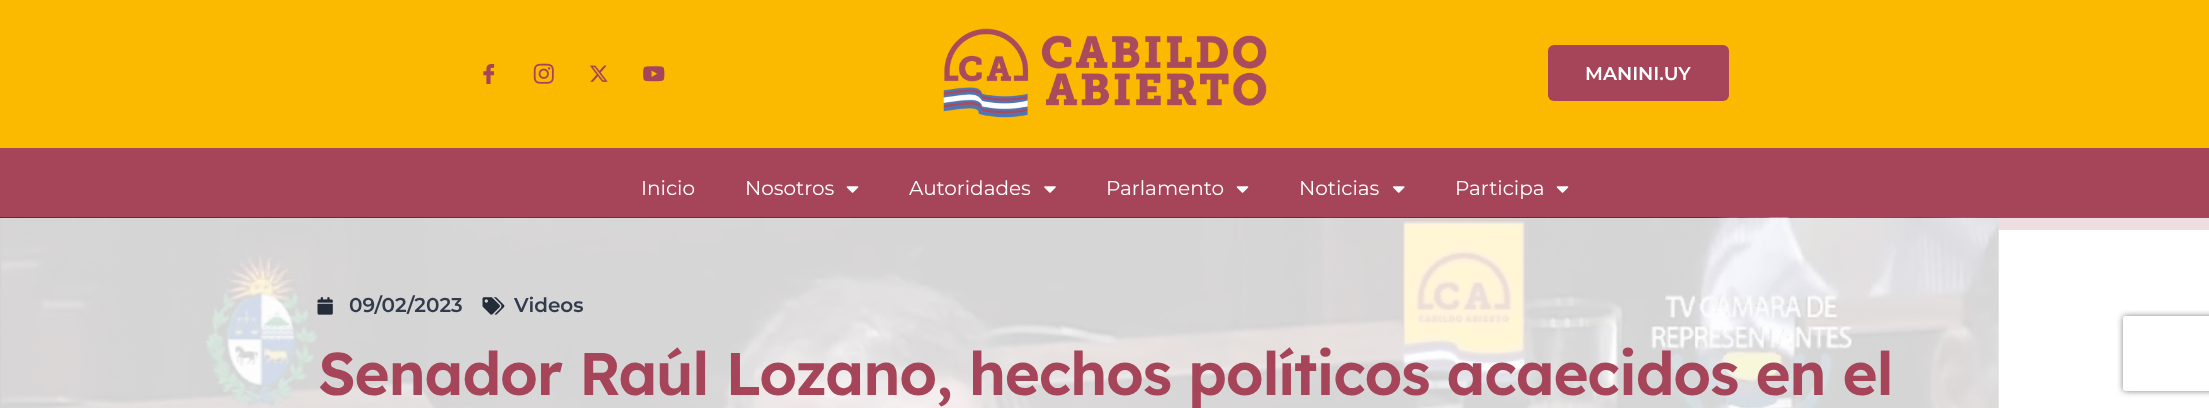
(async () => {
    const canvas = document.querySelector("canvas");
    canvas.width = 2209;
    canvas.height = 408;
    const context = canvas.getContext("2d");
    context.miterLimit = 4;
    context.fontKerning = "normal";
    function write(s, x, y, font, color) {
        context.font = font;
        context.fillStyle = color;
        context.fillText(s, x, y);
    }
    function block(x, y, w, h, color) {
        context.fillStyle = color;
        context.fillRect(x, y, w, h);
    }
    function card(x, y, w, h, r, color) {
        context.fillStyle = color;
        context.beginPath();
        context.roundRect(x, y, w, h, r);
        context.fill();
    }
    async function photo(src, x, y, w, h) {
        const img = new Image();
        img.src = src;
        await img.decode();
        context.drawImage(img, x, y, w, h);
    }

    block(0, 0, 2209, 408, "rgb(255, 255, 255)");
    block(0, 0, 2209, 148, "rgb(251, 186, 0)");
    await photo("media/1.png", 483, 64, 12, 20);
    await photo("media/2.png", 533, 63, 21, 21);
    await photo("media/3.png", 590, 65, 18, 17);
    await photo("media/4.png", 643, 66, 22, 16);
    await photo("media/5.png", 943, 28, 324, 90);
    card(1548, 45, 181, 56, 6, "rgb(166, 69, 89)");
    write("MANINI.UY", 1585, 80, "600 18.75px Montserrat", "rgb(255, 255, 255)");
    block(0, 148, 2209, 70, "rgb(166, 69, 89)");
    block(1998, 218, 211, 12, "rgb(239, 222, 225)");
    write("Inicio", 641, 195, "20px Montserrat", "rgb(255, 255, 255)");
    write("Nosotros", 745, 195, "20px Montserrat", "rgb(255, 255, 255)");
    await photo("media/6.png", 846, 186, 13, 7);
    write("Autoridades", 909, 195, "20px Montserrat", "rgb(255, 255, 255)");
    await photo("media/7.png", 1044, 186, 12, 7);
    write("Parlamento", 1106, 195, "20px Montserrat", "rgb(255, 255, 255)");
    await photo("media/6.png", 1236, 186, 13, 7);
    write("Noticias", 1299, 195, "20px Montserrat", "rgb(255, 255, 255)");
    await photo("media/8.png", 1393, 186, 12, 7);
    write("Participa", 1455, 195, "20px Montserrat", "rgb(255, 255, 255)");
    await photo("media/6.png", 1556, 186, 13, 7);
    await photo("media/9.png", 0, 217, 1999, 191);
    await photo("media/10.png", 317, 297, 16, 18);
    write("09/02/2023", 349, 312, "600 20px Montserrat", "rgb(49, 59, 76)");
    await photo("media/11.png", 482, 297, 23, 18);
    write("Videos", 514, 312, "600 20px Montserrat", "rgb(49, 59, 76)");
    context.letterSpacing = "-1.25px";
    write("Senador Raúl Lozano, hechos políticos acaecidos en el", 318, 395, "600 60px Lexend", "rgb(166, 69, 89)");
    context.save();
    context.beginPath();
    context.moveTo(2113, 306);
    context.lineTo(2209, 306);
    context.lineTo(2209, 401);
    context.lineTo(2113, 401);
    context.closePath();
    context.moveTo(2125.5, 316);
    context.lineTo(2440.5, 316);
    context.bezierCurveTo(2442, 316, 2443, 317, 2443, 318.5);
    context.lineTo(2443, 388.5);
    context.bezierCurveTo(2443, 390, 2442, 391, 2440.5, 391);
    context.lineTo(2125.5, 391);
    context.bezierCurveTo(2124, 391, 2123, 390, 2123, 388.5);
    context.lineTo(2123, 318.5);
    context.bezierCurveTo(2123, 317, 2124, 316, 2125.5, 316);
    context.closePath();
    context.clip("evenodd");
    context.fillStyle = "rgb(128, 128, 128)";
    context.filter = "blur(3px)";
    context.beginPath();
    context.roundRect(2123, 316, 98, 75, 2.5);
    context.fill();
    context.filter = "none";
    context.restore();
})();
